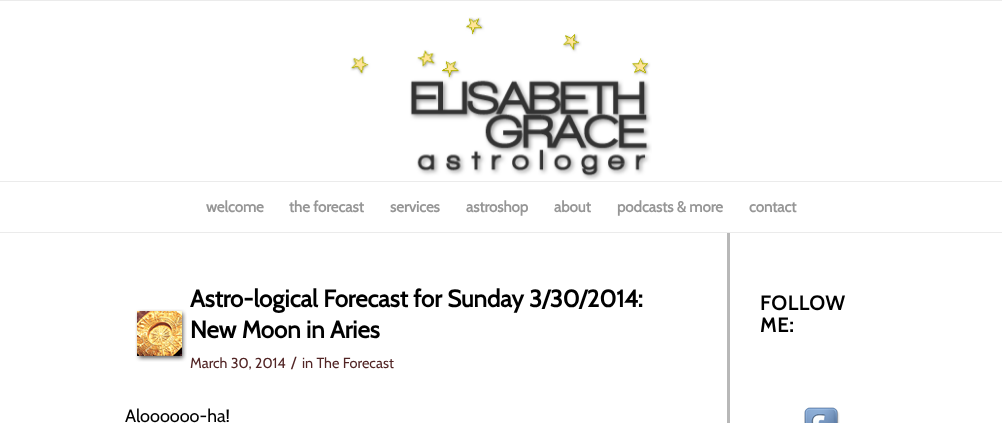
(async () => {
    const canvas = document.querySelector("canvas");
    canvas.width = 1002;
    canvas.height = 423;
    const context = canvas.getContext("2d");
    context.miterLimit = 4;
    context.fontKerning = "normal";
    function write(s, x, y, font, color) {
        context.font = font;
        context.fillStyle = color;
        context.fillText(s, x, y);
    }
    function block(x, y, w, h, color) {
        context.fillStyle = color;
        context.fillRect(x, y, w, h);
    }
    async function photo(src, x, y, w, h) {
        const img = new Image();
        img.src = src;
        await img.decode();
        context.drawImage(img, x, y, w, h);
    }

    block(0, 0, 1002, 423, "rgb(255, 255, 255)");
    block(0, 0, 1002, 1, "rgb(235, 235, 235)");
    block(0, 232, 1002, 1, "rgb(235, 235, 235)");
    await photo("media/1.png", 350, 17, 302, 163);
    block(0, 181, 1002, 1, "rgb(235, 235, 235)");
    write("welcome", 206, 212, "bold 15px Cabin", "rgb(150, 150, 150)");
    write("the forecast", 289, 212, "bold 15px Cabin", "rgb(150, 150, 150)");
    write("services", 390, 212, "bold 15px Cabin", "rgb(150, 150, 150)");
    write("astroshop", 466, 212, "bold 15px Cabin", "rgb(150, 150, 150)");
    write("about", 554, 212, "bold 15px Cabin", "rgb(150, 150, 150)");
    write("podcasts & more", 617, 212, "bold 15px Cabin", "rgb(150, 150, 150)");
    write("contact", 749, 212, "bold 15px Cabin", "rgb(150, 150, 150)");
    await photo("media/2.png", 135, 309, 52, 53);
    write("Astro-logical Forecast for Sunday 3/30/2014:", 190, 307, "bold 24px Cabin", "rgb(0, 0, 0)");
    write("New Moon in Aries", 190, 338, "bold 24px Cabin", "rgb(0, 0, 0)");
    write("March 30, 2014", 190, 368, "14.5px Cabin", "rgb(82, 37, 37)");
    write("/", 291, 368, "16px Cabin", "rgb(82, 37, 37)");
    write("in The Forecast", 302, 368, "14.5px Cabin", "rgb(82, 37, 37)");
    write("Aloooooo-ha!", 125, 422, "18px Cabin", "rgb(0, 0, 0)");
    block(727, 233, 3, 190, "rgb(184, 184, 184)");
    context.letterSpacing = "1px";
    write("FOLLOW", 760, 310, "bold 20px Cabin", "rgb(0, 0, 0)");
    write("ME:", 760, 332, "bold 20px Cabin", "rgb(0, 0, 0)");
    await photo("media/3.png", 804, 407, 36, 16);
})();
